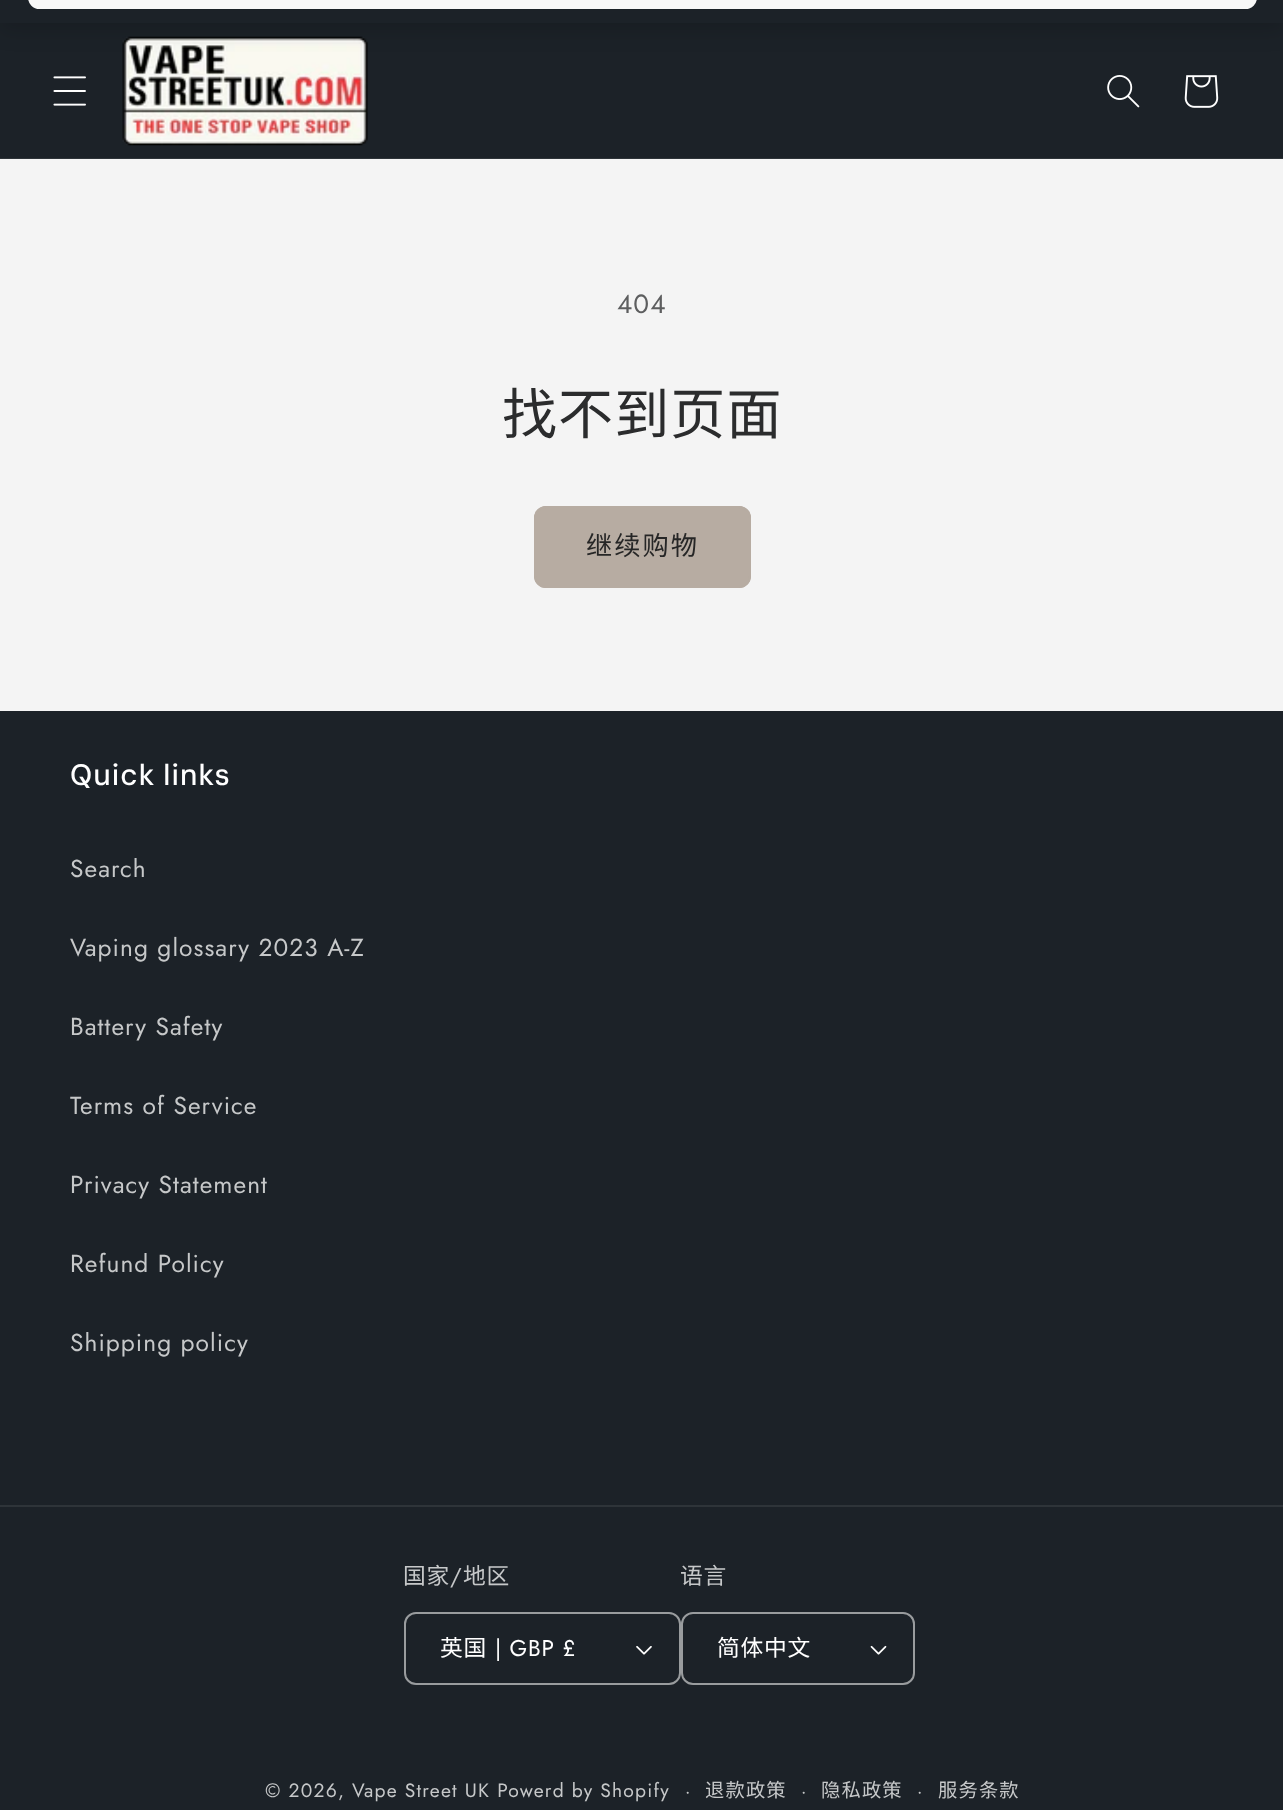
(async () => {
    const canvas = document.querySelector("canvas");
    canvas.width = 1283;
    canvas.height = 1810;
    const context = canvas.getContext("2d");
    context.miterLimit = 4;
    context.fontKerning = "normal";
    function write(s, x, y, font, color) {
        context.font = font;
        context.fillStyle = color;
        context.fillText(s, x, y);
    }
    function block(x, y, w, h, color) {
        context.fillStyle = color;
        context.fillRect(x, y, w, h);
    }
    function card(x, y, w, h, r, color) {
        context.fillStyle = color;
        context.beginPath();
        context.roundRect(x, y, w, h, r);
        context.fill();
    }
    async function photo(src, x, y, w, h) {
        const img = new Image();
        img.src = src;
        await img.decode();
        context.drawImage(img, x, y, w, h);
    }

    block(0, 0, 1283, 1810, "rgb(244, 244, 244)");
    block(0, 23, 1283, 135, "rgb(28, 34, 40)");
    await photo("media/2.png", 122, 36, 246, 110);
    context.fillStyle = "rgba(0, 0, 0, 0.15)";
    context.filter = "blur(10.5px)";
    context.beginPath();
    context.rect(0, -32, 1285, 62);
    context.fill();
    context.filter = "none";
    block(0, 0, 1283, 23, "rgb(28, 34, 40)");
    card(28, -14, 1229, 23, 14, "rgb(248, 248, 248)");
    block(0, 158, 1283, 1, "rgb(46, 52, 57)");
    await photo("media/1.png", 53, 76, 33, 30);
    await photo("media/3.png", 1107, 75, 33, 33);
    await photo("media/4.png", 1184, 75, 35, 33);
    context.letterSpacing = "1.05px";
    write("404", 617, 313, "26.25px Jost", "rgb(93, 94, 95)");
    context.letterSpacing = "1.1px";
    write("找不到页面", 502, 434, "55px Noto Sans CJK SC", "rgb(43, 44, 45)");
    card(534, 506, 217, 82, 12, "rgb(183, 172, 162)");
    context.beginPath();
    context.roundRect(535, 507, 215, 80, 11);
    context.strokeStyle = "rgb(183, 172, 162)";
    context.lineWidth = 2;
    context.stroke();
    context.letterSpacing = "2px";
    write("继续购物", 586, 555, "26.25px Noto Sans CJK SC", "rgb(38, 38, 38)");
    block(0, 711, 1283, 1099, "rgb(28, 34, 40)");
    context.letterSpacing = "1.1px";
    context.wordSpacing = "-1px";
    write("Quick links", 70, 785, "500 29.5px DM Sans", "rgb(255, 255, 255)");
    context.letterSpacing = "1.05px";
    context.wordSpacing = "0px";
    write("Search", 70, 877, "24.5px Jost", "rgb(198, 200, 201)");
    write("Vaping glossary 2023 A-Z", 70, 956, "24.5px Jost", "rgb(198, 200, 201)");
    write("Battery Safety", 70, 1035, "24.5px Jost", "rgb(198, 200, 201)");
    write("Terms of Service", 70, 1114, "24.5px Jost", "rgb(198, 200, 201)");
    write("Privacy Statement", 70, 1193, "24.5px Jost", "rgb(198, 200, 201)");
    write("Refund Policy", 70, 1272, "24.5px Jost", "rgb(198, 200, 201)");
    write("Shipping policy", 70, 1351, "24.5px Jost", "rgb(198, 200, 201)");
    block(0, 1505, 1283, 2, "rgb(46, 52, 57)");
    context.letterSpacing = "0.75px";
    write("国家", 403, 1584, "22.75px Noto Sans CJK SC", "rgb(198, 200, 201)");
    write("/", 450, 1584, "22.75px Jost", "rgb(198, 200, 201)");
    write("地区", 463, 1584, "22.75px Noto Sans CJK SC", "rgb(198, 200, 201)");
    await photo("media/5.png", 636, 1646, 16, 9);
    context.beginPath();
    context.roundRect(405, 1613, 275, 71, 11);
    context.strokeStyle = "rgb(153, 156, 158)";
    context.stroke();
    write("英国", 440, 1656, "22.75px Noto Sans CJK SC", "rgb(255, 255, 255)");
    write("| GBP £", 495, 1656, "22.75px Jost", "rgb(255, 255, 255)");
    write("语言", 680, 1584, "22.75px Noto Sans CJK SC", "rgb(198, 200, 201)");
    await photo("media/6.png", 870, 1645, 17, 10);
    context.beginPath();
    context.roundRect(682, 1613, 232, 71, 11);
    context.stroke();
    write("简体中文", 717, 1656, "22.75px Noto Sans CJK SC", "rgb(255, 255, 255)");
    context.letterSpacing = "1.2px";
    write("© 2026, Vape Street UK Powerd by Shopify", 265, 1797, "19.25px Jost", "rgb(198, 200, 201)");
    write("·", 685, 1797, "18px Jost", "rgb(198, 200, 201)");
    write("退款政策", 705, 1797, "19.25px Noto Sans CJK SC", "rgb(198, 200, 201)");
    write("·", 801, 1797, "18px Jost", "rgb(198, 200, 201)");
    write("隐私政策", 821, 1797, "19.25px Noto Sans CJK SC", "rgb(198, 200, 201)");
    write("·", 917, 1797, "18px Jost", "rgb(198, 200, 201)");
    write("服务条款", 938, 1797, "19.25px Noto Sans CJK SC", "rgb(198, 200, 201)");
})();
